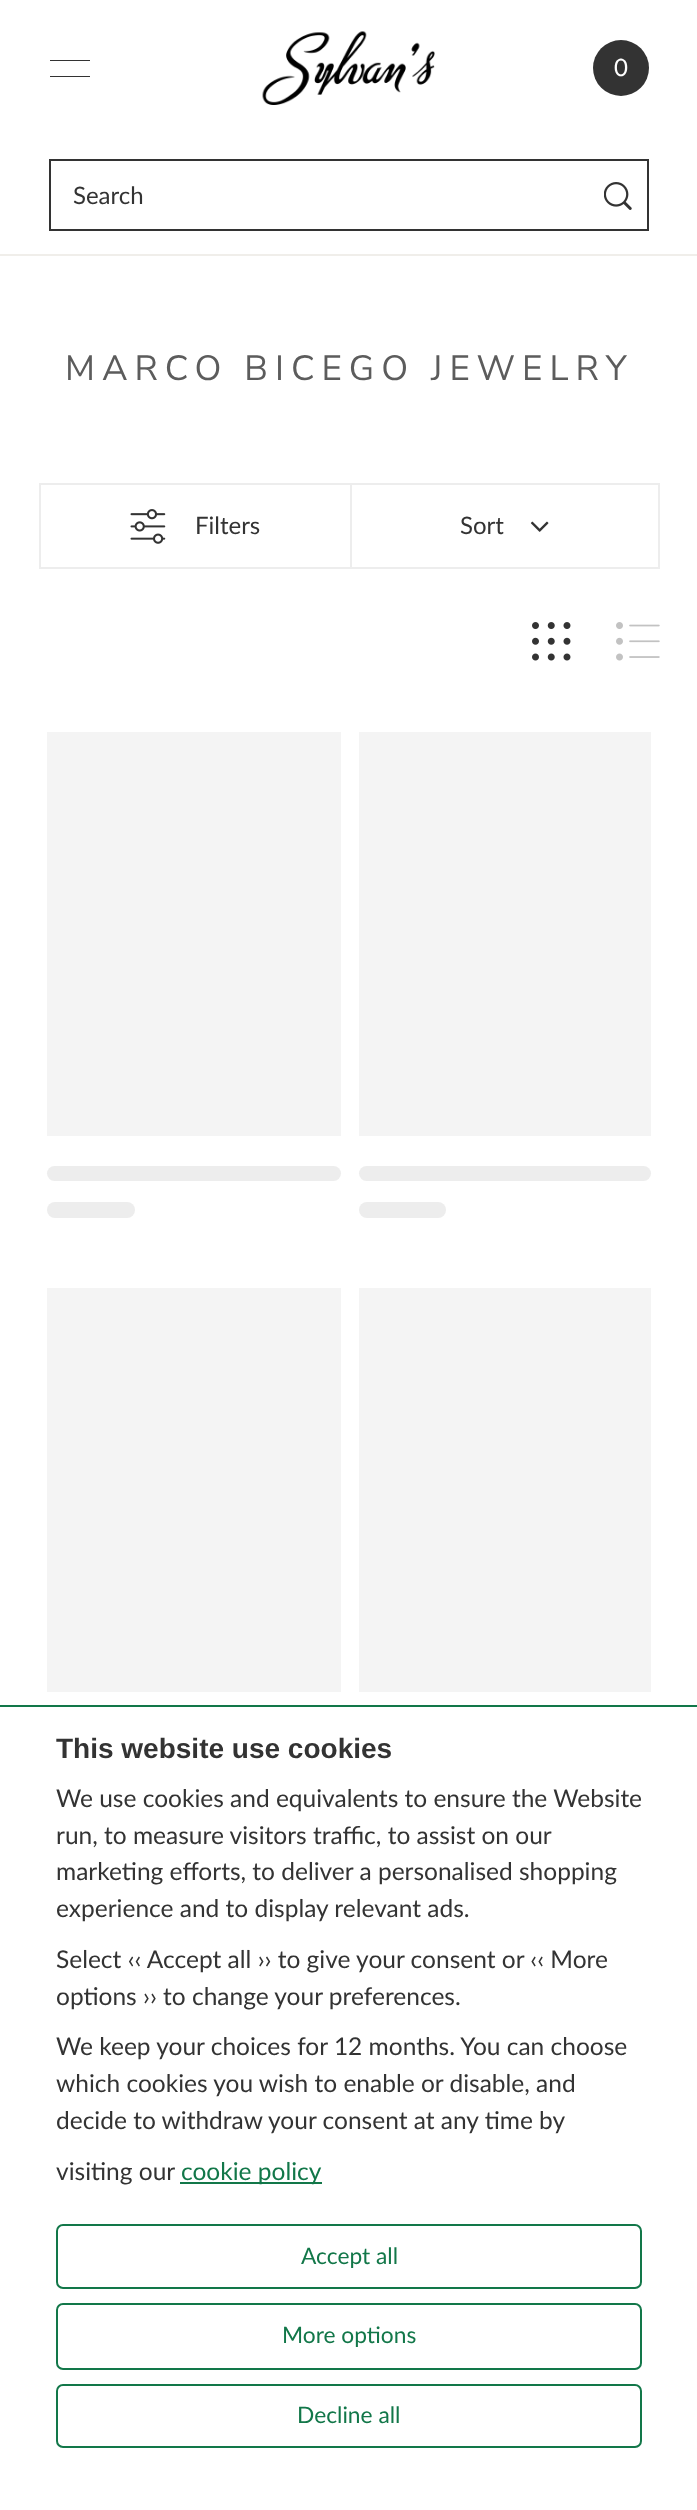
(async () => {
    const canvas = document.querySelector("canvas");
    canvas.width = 697;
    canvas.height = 2510;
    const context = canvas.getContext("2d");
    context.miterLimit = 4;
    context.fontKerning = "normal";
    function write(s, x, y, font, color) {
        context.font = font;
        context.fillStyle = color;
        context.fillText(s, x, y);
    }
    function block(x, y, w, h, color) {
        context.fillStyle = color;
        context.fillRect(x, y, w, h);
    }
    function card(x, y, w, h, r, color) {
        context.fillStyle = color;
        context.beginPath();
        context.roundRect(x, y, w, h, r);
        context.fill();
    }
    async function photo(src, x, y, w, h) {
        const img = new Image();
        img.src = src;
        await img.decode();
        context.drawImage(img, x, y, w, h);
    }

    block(0, 0, 697, 2510, "rgb(255, 255, 255)");
    block(50, 60, 40, 1, "rgb(51, 51, 51)");
    block(50, 76, 40, 1, "rgb(51, 51, 51)");
    await photo("media/1.png", 262, 31, 173, 74);
    context.beginPath();
    context.arc(621, 68, 28, 0, Math.PI * 2);
    context.fill();
    write("0", 614, 76, "24px Lato", "rgb(255, 255, 255)");
    context.strokeStyle = "rgb(51, 51, 51)";
    context.lineWidth = 2;
    context.strokeRect(50, 160, 598, 70);
    write("Search", 73, 204, "24px Lato", "rgb(51, 51, 51)");
    await photo("media/2.png", 604, 182, 28, 28);
    block(0, 254, 697, 2, "rgb(240, 238, 234)");
    context.letterSpacing = "7px";
    write("MARCO BICEGO JEWELRY", 65, 380, "35px Nunito Sans", "rgb(92, 92, 92)");
    block(39, 483, 311, 2, "rgb(237, 237, 237)");
    block(39, 567, 311, 2, "rgb(237, 237, 237)");
    block(39, 483, 2, 86, "rgb(237, 237, 237)");
    await photo("media/3.png", 130, 509, 36, 35);
    context.letterSpacing = "0px";
    write("Filters", 195, 534, "24px Lato", "rgb(51, 51, 51)");
    context.strokeStyle = "rgb(237, 237, 237)";
    context.strokeRect(351, 484, 308, 84);
    write("Sort", 460, 534, "24px Lato", "rgb(51, 51, 51)");
    await photo("media/4.png", 530, 521, 19, 11);
    await photo("media/5.png", 532, 622, 39, 39);
    await photo("media/6.png", 616, 622, 44, 39);
    block(47, 732, 294, 404, "rgb(244, 244, 244)");
    card(47, 1166, 294, 15, 7.5, "rgb(237, 237, 237)");
    card(47, 1202, 88, 16, 8, "rgb(237, 237, 237)");
    block(359, 732, 292, 404, "rgb(244, 244, 244)");
    card(359, 1166, 292, 15, 7.5, "rgb(237, 237, 237)");
    card(359, 1202, 87, 16, 8, "rgb(237, 237, 237)");
    block(47, 1288, 294, 404, "rgb(244, 244, 244)");
    block(359, 1288, 292, 404, "rgb(244, 244, 244)");
    block(0, 1705, 697, 2, "rgb(18, 119, 73)");
    write("This website use cookies", 56, 1758, "bold 28px Liberation Sans", "rgb(51, 51, 51)");
    write("We use cookies and equivalents to ensure the Website", 56, 1807, "24.5px Lato", "rgb(51, 51, 51)");
    write("run, to measure visitors traffic, to assist on our", 56, 1844, "24.5px Lato", "rgb(51, 51, 51)");
    write("marketing efforts, to deliver a personalised shopping", 56, 1880, "24.5px Lato", "rgb(51, 51, 51)");
    write("experience and to display relevant ads.", 56, 1917, "24.5px Lato", "rgb(51, 51, 51)");
    write("Select ‹‹ Accept all ›› to give your consent or ‹‹ More", 56, 1968, "24.5px Lato", "rgb(51, 51, 51)");
    write("options ›› to change your preferences.", 56, 2005, "24.5px Lato", "rgb(51, 51, 51)");
    write("We keep your choices for 12 months. You can choose", 56, 2055, "24.5px Lato", "rgb(51, 51, 51)");
    write("which cookies you wish to enable or disable, and", 56, 2092, "24.5px Lato", "rgb(51, 51, 51)");
    write("decide to withdraw your consent at any time by", 56, 2129, "24.5px Lato", "rgb(51, 51, 51)");
    write("visiting our", 56, 2180, "24.5px Lato", "rgb(51, 51, 51)");
    block(180, 2182, 142, 2, "rgb(18, 119, 73)");
    write("cookie policy", 181, 2180, "24.5px Lato", "rgb(18, 119, 73)");
    context.beginPath();
    context.roundRect(57, 2225, 584, 63, 6);
    context.strokeStyle = "rgb(18, 119, 73)";
    context.stroke();
    write("Accept all", 301, 2264, "22.75px Lato", "rgb(18, 119, 73)");
    context.beginPath();
    context.roundRect(57, 2304, 584, 65, 6);
    context.stroke();
    write("More options", 282, 2343, "22.75px Lato", "rgb(18, 119, 73)");
    context.beginPath();
    context.roundRect(57, 2385, 584, 62, 6);
    context.stroke();
    write("Decline all", 297, 2423, "22.75px Lato", "rgb(18, 119, 73)");
})();
